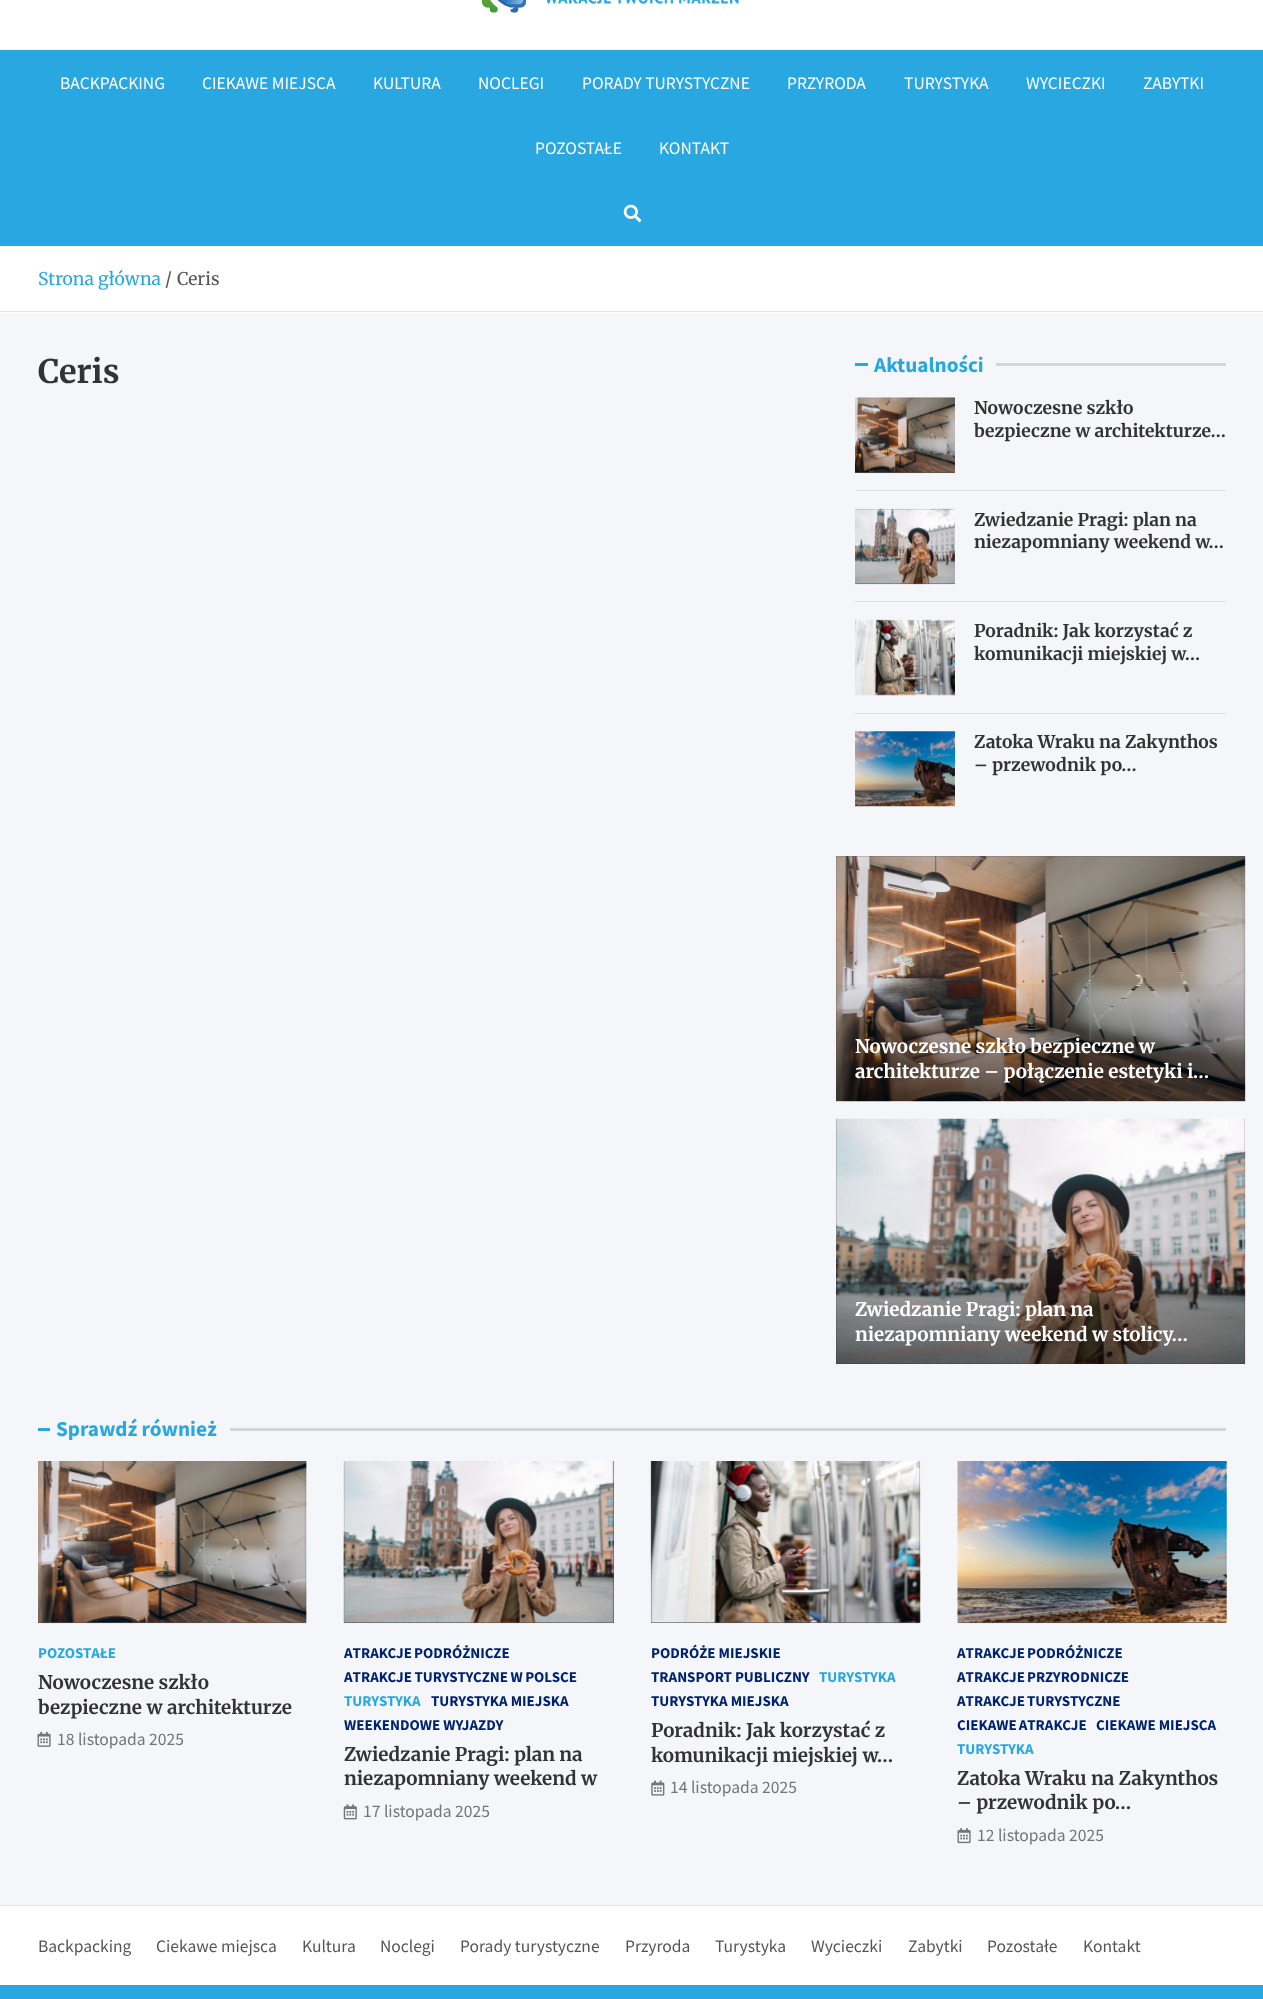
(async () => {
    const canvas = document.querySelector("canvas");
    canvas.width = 1263;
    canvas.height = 1999;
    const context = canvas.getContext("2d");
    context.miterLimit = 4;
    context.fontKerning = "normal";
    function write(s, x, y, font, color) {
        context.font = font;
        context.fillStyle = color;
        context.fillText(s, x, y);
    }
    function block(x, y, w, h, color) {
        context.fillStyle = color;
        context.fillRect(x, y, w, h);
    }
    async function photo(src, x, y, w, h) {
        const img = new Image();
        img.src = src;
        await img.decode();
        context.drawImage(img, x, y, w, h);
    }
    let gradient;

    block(0, 0, 1263, 1999, "rgb(244, 246, 249)");
    block(0, 0, 1263, 50, "rgb(255, 255, 255)");
    await photo("media/1.png", 482, 0, 257, 13);
    block(0, 50, 1263, 196, "rgb(41, 167, 224)");
    write("BACKPACKING", 60, 89, "17.5px Source Sans Pro", "rgb(255, 255, 255)");
    write("CIEKAWE MIEJSCA", 202, 89, "17.5px Source Sans Pro", "rgb(255, 255, 255)");
    write("KULTURA", 373, 89, "17.5px Source Sans Pro", "rgb(255, 255, 255)");
    write("NOCLEGI", 478, 89, "17.5px Source Sans Pro", "rgb(255, 255, 255)");
    write("PORADY TURYSTYCZNE", 582, 89, "17.5px Source Sans Pro", "rgb(255, 255, 255)");
    write("PRZYRODA", 787, 89, "17.5px Source Sans Pro", "rgb(255, 255, 255)");
    write("TURYSTYKA", 904, 89, "17.5px Source Sans Pro", "rgb(255, 255, 255)");
    write("WYCIECZKI", 1026, 89, "17.5px Source Sans Pro", "rgb(255, 255, 255)");
    write("ZABYTKI", 1143, 89, "17.5px Source Sans Pro", "rgb(255, 255, 255)");
    write("POZOSTAŁE", 535, 154, "17.5px Source Sans Pro", "rgb(255, 255, 255)");
    write("KONTAKT", 659, 154, "17.5px Source Sans Pro", "rgb(255, 255, 255)");
    await photo("media/2.png", 623, 204, 19, 19);
    block(0, 246, 1263, 67, "rgb(255, 255, 255)");
    block(0, 311, 1263, 1, "rgb(230, 230, 230)");
    write("Strona główna", 38, 285, "17.5px Merriweather", "rgb(41, 167, 224)");
    write("/", 165, 285, "17.5px Merriweather", "rgb(85, 85, 85)");
    write("Ceris", 177, 285, "17.5px Merriweather", "rgb(85, 85, 85)");
    write("Ceris", 38, 383, "bold 32.5px Merriweather", "rgb(51, 51, 51)");
    block(855, 363, 13, 3, "rgb(41, 167, 224)");
    write("Aktualności", 874, 372, "bold 21.25px Source Sans Pro", "rgb(41, 167, 224)");
    block(996, 363, 230, 3, "rgb(212, 214, 216)");
    block(855, 398, 100, 75, "rgb(85, 85, 85)");
    await photo("media/3.png", 855, 397, 100, 77);
    write("Nowoczesne szkło", 974, 414, "bold 17.5px Merriweather", "rgb(51, 51, 51)");
    write("bezpieczne w architekturze…", 974, 437, "bold 17.5px Merriweather", "rgb(51, 51, 51)");
    block(855, 490, 371, 1, "rgb(220, 221, 224)");
    block(855, 509, 100, 75, "rgb(85, 85, 85)");
    await photo("media/4.png", 855, 508, 100, 77);
    write("Zwiedzanie Pragi: plan na", 974, 526, "bold 17.5px Merriweather", "rgb(51, 51, 51)");
    write("niezapomniany weekend w…", 974, 548, "bold 17.5px Merriweather", "rgb(51, 51, 51)");
    block(855, 601, 371, 1, "rgb(220, 221, 224)");
    await photo("media/5.png", 855, 619, 100, 77);
    write("Poradnik: Jak korzystać z", 974, 637, "bold 17.5px Merriweather", "rgb(51, 51, 51)");
    write("komunikacji miejskiej w…", 974, 660, "bold 17.5px Merriweather", "rgb(51, 51, 51)");
    block(855, 713, 371, 1, "rgb(220, 221, 224)");
    await photo("media/6.png", 855, 731, 100, 76);
    write("Zatoka Wraku na Zakynthos", 974, 748, "bold 17.5px Merriweather", "rgb(51, 51, 51)");
    write("– przewodnik po…", 974, 771, "bold 17.5px Merriweather", "rgb(51, 51, 51)");
    block(836, 856, 409, 245, "rgb(85, 85, 85)");
    await photo("media/7.png", 836, 856, 410, 246);
    gradient = context.createLinearGradient(1041, 856, 1041, 1101);
    gradient.addColorStop(0.5, "rgba(0, 0, 0, 0)");
    gradient.addColorStop(1, "rgba(0, 0, 0, 0.5)");
    context.fillStyle = gradient;
    context.fillRect(836, 984, 409, 117);
    write("Nowoczesne szkło bezpieczne w", 855, 1053, "bold 18.75px Merriweather", "rgb(255, 255, 255)");
    write("architekturze – połączenie estetyki i…", 855, 1078, "bold 18.75px Merriweather", "rgb(255, 255, 255)");
    block(836, 1119, 409, 245, "rgb(85, 85, 85)");
    await photo("media/8.png", 836, 1118, 410, 246);
    gradient = context.createLinearGradient(1041, 1119, 1041, 1364);
    gradient.addColorStop(0.5, "rgba(0, 0, 0, 0)");
    gradient.addColorStop(1, "rgba(0, 0, 0, 0.5)");
    context.fillStyle = gradient;
    context.fillRect(836, 1247, 409, 117);
    write("Zwiedzanie Pragi: plan na", 855, 1316, "bold 18.75px Merriweather", "rgb(255, 255, 255)");
    write("niezapomniany weekend w stolicy…", 855, 1341, "bold 18.75px Merriweather", "rgb(255, 255, 255)");
    block(38, 1428, 12, 3, "rgb(41, 167, 224)");
    write("Sprawdź również", 56, 1436, "bold 21.25px Source Sans Pro", "rgb(41, 167, 224)");
    block(230, 1428, 996, 3, "rgb(212, 214, 216)");
    block(38, 1461, 268, 162, "rgb(85, 85, 85)");
    await photo("media/9.png", 38, 1461, 269, 163);
    write("POZOSTAŁE", 38, 1658, "bold 15px Source Sans Pro", "rgb(41, 167, 224)");
    write("Nowoczesne szkło", 38, 1689, "bold 18.75px Merriweather", "rgb(51, 51, 51)");
    write("bezpieczne w architekturze", 38, 1714, "bold 18.75px Merriweather", "rgb(51, 51, 51)");
    await photo("media/10.png", 37, 1731, 14, 16);
    write("18 listopada 2025", 57, 1745, "17.5px Source Sans Pro", "rgb(117, 117, 118)");
    block(344, 1461, 270, 162, "rgb(85, 85, 85)");
    await photo("media/11.png", 343, 1461, 271, 163);
    context.wordSpacing = "-1px";
    write("ATRAKCJE PODRÓŻNICZE", 344, 1658, "bold 15px Source Sans Pro", "rgb(0, 35, 110)");
    context.wordSpacing = "-0.5px";
    write("ATRAKCJE TURYSTYCZNE W POLSCE", 344, 1682, "bold 15px Source Sans Pro", "rgb(0, 35, 110)");
    context.wordSpacing = "0px";
    write("TURYSTYKA", 344, 1706, "bold 15px Source Sans Pro", "rgb(41, 167, 224)");
    write("TURYSTYKA MIEJSKA", 431, 1706, "bold 15px Source Sans Pro", "rgb(0, 35, 110)");
    write("WEEKENDOWE WYJAZDY", 344, 1730, "bold 15px Source Sans Pro", "rgb(0, 35, 110)");
    write("Zwiedzanie Pragi: plan na", 344, 1761, "bold 18.75px Merriweather", "rgb(51, 51, 51)");
    write("niezapomniany weekend w", 344, 1785, "bold 18.75px Merriweather", "rgb(51, 51, 51)");
    await photo("media/12.png", 343, 1804, 14, 16);
    write("17 listopada 2025", 363, 1817, "17.5px Source Sans Pro", "rgb(117, 117, 118)");
    block(651, 1461, 269, 162, "rgb(85, 85, 85)");
    await photo("media/13.png", 650, 1461, 271, 163);
    write("PODRÓŻE MIEJSKIE", 651, 1658, "bold 15px Source Sans Pro", "rgb(0, 35, 110)");
    write("TRANSPORT PUBLICZNY", 651, 1682, "bold 15px Source Sans Pro", "rgb(0, 35, 110)");
    write("TURYSTYKA", 819, 1682, "bold 15px Source Sans Pro", "rgb(41, 167, 224)");
    write("TURYSTYKA MIEJSKA", 651, 1706, "bold 15px Source Sans Pro", "rgb(0, 35, 110)");
    write("Poradnik: Jak korzystać z", 651, 1737, "bold 18.75px Merriweather", "rgb(51, 51, 51)");
    write("komunikacji miejskiej w…", 651, 1762, "bold 18.75px Merriweather", "rgb(51, 51, 51)");
    await photo("media/14.png", 651, 1780, 14, 16);
    write("14 listopada 2025", 670, 1793, "17.5px Source Sans Pro", "rgb(117, 117, 118)");
    block(958, 1461, 268, 162, "rgb(85, 85, 85)");
    await photo("media/15.png", 957, 1461, 270, 163);
    context.wordSpacing = "-1px";
    write("ATRAKCJE PODRÓŻNICZE", 957, 1658, "bold 15px Source Sans Pro", "rgb(0, 35, 110)");
    write("ATRAKCJE PRZYRODNICZE", 957, 1682, "bold 15px Source Sans Pro", "rgb(0, 35, 110)");
    write("ATRAKCJE TURYSTYCZNE", 957, 1706, "bold 15px Source Sans Pro", "rgb(0, 35, 110)");
    write("CIEKAWE ATRAKCJE", 957, 1730, "bold 15px Source Sans Pro", "rgb(0, 35, 110)");
    context.wordSpacing = "0px";
    write("CIEKAWE MIEJSCA", 1096, 1730, "bold 15px Source Sans Pro", "rgb(0, 35, 110)");
    write("TURYSTYKA", 957, 1754, "bold 15px Source Sans Pro", "rgb(41, 167, 224)");
    write("Zatoka Wraku na Zakynthos", 957, 1785, "bold 18.75px Merriweather", "rgb(51, 51, 51)");
    write("– przewodnik po…", 957, 1809, "bold 18.75px Merriweather", "rgb(51, 51, 51)");
    await photo("media/16.png", 957, 1828, 14, 16);
    write("12 listopada 2025", 977, 1841, "17.5px Source Sans Pro", "rgb(117, 117, 118)");
    block(0, 1906, 1263, 79, "rgb(255, 255, 255)");
    block(0, 1905, 1263, 1, "rgb(230, 230, 230)");
    write("Backpacking", 38, 1952, "17.5px Source Sans Pro", "rgb(85, 85, 85)");
    write("Ciekawe miejsca", 156, 1952, "17.5px Source Sans Pro", "rgb(85, 85, 85)");
    write("Kultura", 302, 1952, "17.5px Source Sans Pro", "rgb(85, 85, 85)");
    write("Noclegi", 380, 1952, "17.5px Source Sans Pro", "rgb(85, 85, 85)");
    write("Porady turystyczne", 460, 1952, "17.5px Source Sans Pro", "rgb(85, 85, 85)");
    write("Przyroda", 625, 1952, "17.5px Source Sans Pro", "rgb(85, 85, 85)");
    write("Turystyka", 715, 1952, "17.5px Source Sans Pro", "rgb(85, 85, 85)");
    write("Wycieczki", 811, 1952, "17.5px Source Sans Pro", "rgb(85, 85, 85)");
    write("Zabytki", 908, 1952, "17.5px Source Sans Pro", "rgb(85, 85, 85)");
    write("Pozostałe", 987, 1952, "17.5px Source Sans Pro", "rgb(85, 85, 85)");
    write("Kontakt", 1083, 1952, "17.5px Source Sans Pro", "rgb(85, 85, 85)");
    block(0, 1985, 1263, 14, "rgb(41, 167, 224)");
})();
